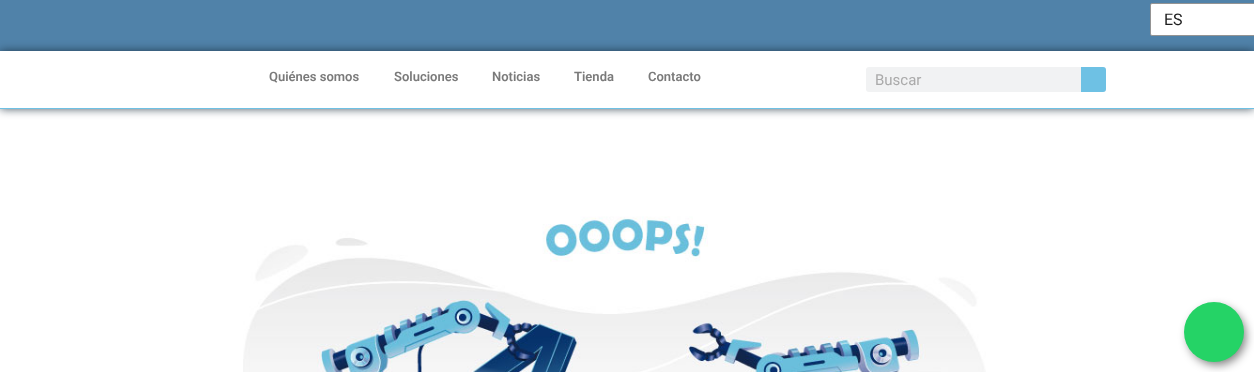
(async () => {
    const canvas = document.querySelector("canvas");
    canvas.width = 1254;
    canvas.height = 372;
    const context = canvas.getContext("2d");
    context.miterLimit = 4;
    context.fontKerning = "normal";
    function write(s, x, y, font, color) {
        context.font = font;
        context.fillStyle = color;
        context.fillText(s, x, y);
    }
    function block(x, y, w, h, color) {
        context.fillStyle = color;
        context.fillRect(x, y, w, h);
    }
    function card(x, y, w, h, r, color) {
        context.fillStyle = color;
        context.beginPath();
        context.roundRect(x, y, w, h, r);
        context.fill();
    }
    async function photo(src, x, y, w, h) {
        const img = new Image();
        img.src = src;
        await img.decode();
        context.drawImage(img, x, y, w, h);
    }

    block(0, 0, 1254, 372, "rgb(255, 255, 255)");
    block(0, 0, 1254, 51, "rgb(80, 130, 169)");
    context.fillStyle = "rgb(255, 255, 255)";
    context.beginPath();
    context.roundRect(1150.5, 3.5, 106, 32, 1.5);
    context.fill();
    context.strokeStyle = "rgb(148, 148, 148)";
    context.stroke();
    write("ES", 1164, 25, "16px Roboto", "rgb(30, 30, 30)");
    context.save();
    context.beginPath();
    context.moveTo(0, 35);
    context.lineTo(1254, 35);
    context.lineTo(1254, 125);
    context.lineTo(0, 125);
    context.closePath();
    context.moveTo(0, 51);
    context.lineTo(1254, 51);
    context.lineTo(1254, 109);
    context.lineTo(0, 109);
    context.closePath();
    context.clip("evenodd");
    context.fillStyle = "rgba(20, 38, 53, 0.77)";
    context.filter = "blur(5px)";
    context.beginPath();
    context.rect(0, 51, 1254, 58);
    context.fill();
    context.filter = "none";
    context.restore();
    block(0, 108, 1254, 1, "rgb(110, 193, 228)");
    write("Quiénes somos", 269, 81, "600 13px Roboto", "rgb(122, 122, 122)");
    write("Soluciones", 394, 81, "600 13px Roboto", "rgb(122, 122, 122)");
    write("Noticias", 492, 81, "600 13px Roboto", "rgb(122, 122, 122)");
    write("Tienda", 574, 81, "600 13px Roboto", "rgb(122, 122, 122)");
    write("Contacto", 648, 81, "600 13px Roboto", "rgb(122, 122, 122)");
    card(866, 67, 240, 25, 3, "rgb(241, 242, 243)");
    write("Buscar", 875, 85, "15px Roboto", "rgb(170, 170, 170)");
    context.fillStyle = "rgb(110, 193, 228)";
    context.beginPath();
    context.roundRect(1081, 67, 25, 25, [0, 3, 3, 0]);
    context.fill();
    await photo("media/1.png", 243, 216, 743, 156);
    context.fillStyle = "rgba(0, 0, 0, 0.5)";
    context.filter = "blur(5px)";
    context.beginPath();
    context.roundRect(1188, 307, 58, 58, 29);
    context.fill();
    context.filter = "none";
    context.fillStyle = "rgb(37, 211, 102)";
    context.beginPath();
    context.arc(1214, 332, 30, 0, Math.PI * 2);
    context.fill();
})();
